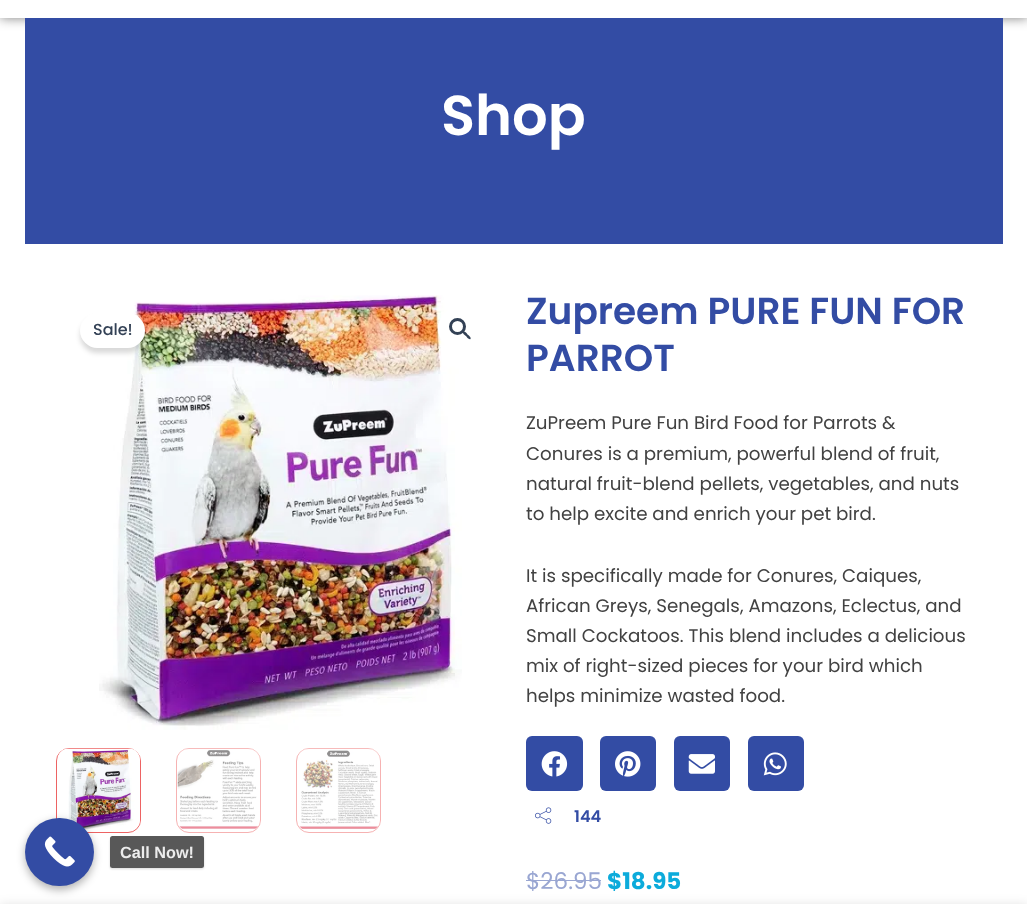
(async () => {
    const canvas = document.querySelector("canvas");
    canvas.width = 1027;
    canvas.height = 904;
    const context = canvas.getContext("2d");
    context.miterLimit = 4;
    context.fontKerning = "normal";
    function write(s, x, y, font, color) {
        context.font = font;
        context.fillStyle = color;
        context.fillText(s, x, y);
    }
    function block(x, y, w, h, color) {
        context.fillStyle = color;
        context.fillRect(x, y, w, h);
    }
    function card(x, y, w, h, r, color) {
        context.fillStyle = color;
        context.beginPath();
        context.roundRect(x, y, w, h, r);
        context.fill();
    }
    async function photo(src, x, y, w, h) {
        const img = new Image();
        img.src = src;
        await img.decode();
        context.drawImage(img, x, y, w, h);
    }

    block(0, 0, 1027, 904, "rgb(255, 255, 255)");
    context.fillStyle = "rgba(0, 0, 0, 0.5)";
    context.filter = "blur(6px)";
    context.beginPath();
    context.rect(0, -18, 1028, 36);
    context.fill();
    context.filter = "none";
    block(0, 0, 1027, 18, "rgb(255, 255, 255)");
    block(25, 18, 978, 226, "rgb(51, 76, 164)");
    write("Shop", 441, 135, "600 56px Poppins", "rgb(255, 255, 255)");
    await photo("media/1.png", 99, 295, 363, 435);
    context.beginPath();
    context.arc(460.5, 328.5, 22.5, 0, Math.PI * 2);
    context.fill();
    context.beginPath();
    context.arc(457.5, 326.5, 7, 0, Math.PI * 2);
    context.strokeStyle = "rgb(51, 65, 85)";
    context.lineWidth = 3;
    context.stroke();
    context.fillStyle = "rgb(51, 65, 85)";
    context.beginPath();
    context.moveTo(463, 331.5);
    context.bezierCurveTo(464.5, 330.5, 467, 333.5, 467.5, 334.5);
    context.bezierCurveTo(468.5, 335, 471.5, 337.5, 470.5, 339);
    context.bezierCurveTo(469, 340, 466.5, 337, 466, 336);
    context.bezierCurveTo(465, 335.5, 462, 333, 463, 331.5);
    context.closePath();
    context.fill();
    context.beginPath();
    context.roundRect(56.5, 748.5, 84, 84, 12.5);
    context.strokeStyle = "rgb(237, 99, 99)";
    context.lineWidth = 1;
    context.stroke();
    await photo("media/2.png", 57, 748, 83, 83);
    context.beginPath();
    context.roundRect(176.5, 748.5, 84, 84, 12.5);
    context.strokeStyle = "rgb(246, 178, 178)";
    context.stroke();
    await photo("media/3.png", 177, 748, 83, 81);
    context.beginPath();
    context.roundRect(296.5, 748.5, 84, 84, 12.5);
    context.stroke();
    await photo("media/4.png", 298, 748, 82, 81);
    context.fillStyle = "rgba(0, 0, 0, 0.15)";
    context.filter = "blur(2.5px)";
    context.beginPath();
    context.roundRect(80, 318, 65, 35, 17.5);
    context.fill();
    context.filter = "none";
    card(80, 313, 65, 35, 17.5, "rgb(255, 255, 255)");
    write("Sale!", 93, 335, "500 16px Poppins", "rgb(51, 65, 85)");
    write("Zupreem PURE FUN FOR", 526, 324, "600 37.5px Poppins", "rgb(51, 76, 164)");
    write("PARROT", 526, 371, "600 37.5px Poppins", "rgb(51, 76, 164)");
    write("ZuPreem Pure Fun Bird Food for Parrots &", 526, 429, "18.25px Poppins", "rgb(66, 66, 66)");
    write("Conures is a premium, powerful blend of fruit,", 526, 460, "18.25px Poppins", "rgb(66, 66, 66)");
    write("natural fruit-blend pellets, vegetables, and nuts", 526, 490, "18.25px Poppins", "rgb(66, 66, 66)");
    write("to help excite and enrich your pet bird.", 526, 520, "18.25px Poppins", "rgb(66, 66, 66)");
    write("It is specifically made for Conures, Caiques,", 526, 582, "18.25px Poppins", "rgb(66, 66, 66)");
    write("African Greys, Senegals, Amazons, Eclectus, and", 526, 612, "18.25px Poppins", "rgb(66, 66, 66)");
    write("Small Cockatoos. This blend includes a delicious", 526, 642, "18.25px Poppins", "rgb(66, 66, 66)");
    write("mix of right-sized pieces for your bird which", 526, 672, "18.25px Poppins", "rgb(66, 66, 66)");
    write("helps minimize wasted food.", 526, 702, "18.25px Poppins", "rgb(66, 66, 66)");
    card(526, 736, 57, 55, 6, "rgb(51, 76, 164)");
    await photo("media/5.png", 541, 751, 27, 26);
    card(600, 736, 56, 55, 6, "rgb(51, 76, 164)");
    await photo("media/6.png", 615, 751, 26, 26);
    card(674, 736, 56, 55, 6, "rgb(51, 76, 164)");
    await photo("media/7.png", 688, 754, 27, 20);
    card(748, 736, 56, 55, 6, "rgb(51, 76, 164)");
    await photo("media/8.png", 763, 752, 24, 24);
    await photo("media/9.png", 535, 807, 17, 17);
    write("144", 574, 822, "600 16.25px Poppins", "rgb(51, 76, 164)");
    write("$26.95", 526, 889, "23px Poppins", "rgb(153, 166, 210)");
    block(526, 880, 75, 1, "rgb(153, 166, 210)");
    write("$18.95", 607, 889, "bold 23px Poppins", "rgb(12, 171, 219)");
    context.fillStyle = "rgba(0, 0, 0, 0.3)";
    context.filter = "blur(4px)";
    context.beginPath();
    context.roundRect(25, 821, 69, 69, 34.5);
    context.fill();
    context.filter = "none";
    card(25, 818, 69, 68, 34, "rgb(51, 76, 164)");
    await photo("media/10.png", 44, 836, 31, 31);
    context.save();
    context.beginPath();
    context.moveTo(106, 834);
    context.lineTo(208, 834);
    context.lineTo(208, 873);
    context.lineTo(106, 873);
    context.closePath();
    context.moveTo(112.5, 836);
    context.lineTo(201.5, 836);
    context.bezierCurveTo(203, 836, 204, 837, 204, 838.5);
    context.lineTo(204, 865.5);
    context.bezierCurveTo(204, 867, 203, 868, 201.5, 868);
    context.lineTo(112.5, 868);
    context.bezierCurveTo(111, 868, 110, 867, 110, 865.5);
    context.lineTo(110, 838.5);
    context.bezierCurveTo(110, 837, 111, 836, 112.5, 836);
    context.closePath();
    context.clip("evenodd");
    context.fillStyle = "rgba(0, 0, 0, 0.15)";
    context.filter = "blur(1px)";
    context.beginPath();
    context.roundRect(110, 838, 94, 31, 2.5);
    context.fill();
    context.filter = "none";
    context.restore();
    card(110, 836, 94, 32, 2.5, "rgba(70, 70, 70, 0.9)");
    write("Call Now!", 120, 858, "bold 16.25px Liberation Sans", "rgb(236, 236, 236)");
    context.fillStyle = "rgba(0, 0, 0, 0.12)";
    context.filter = "blur(5.5px)";
    context.beginPath();
    context.rect(0, 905, 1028, 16);
    context.fill();
    context.filter = "none";
})();
